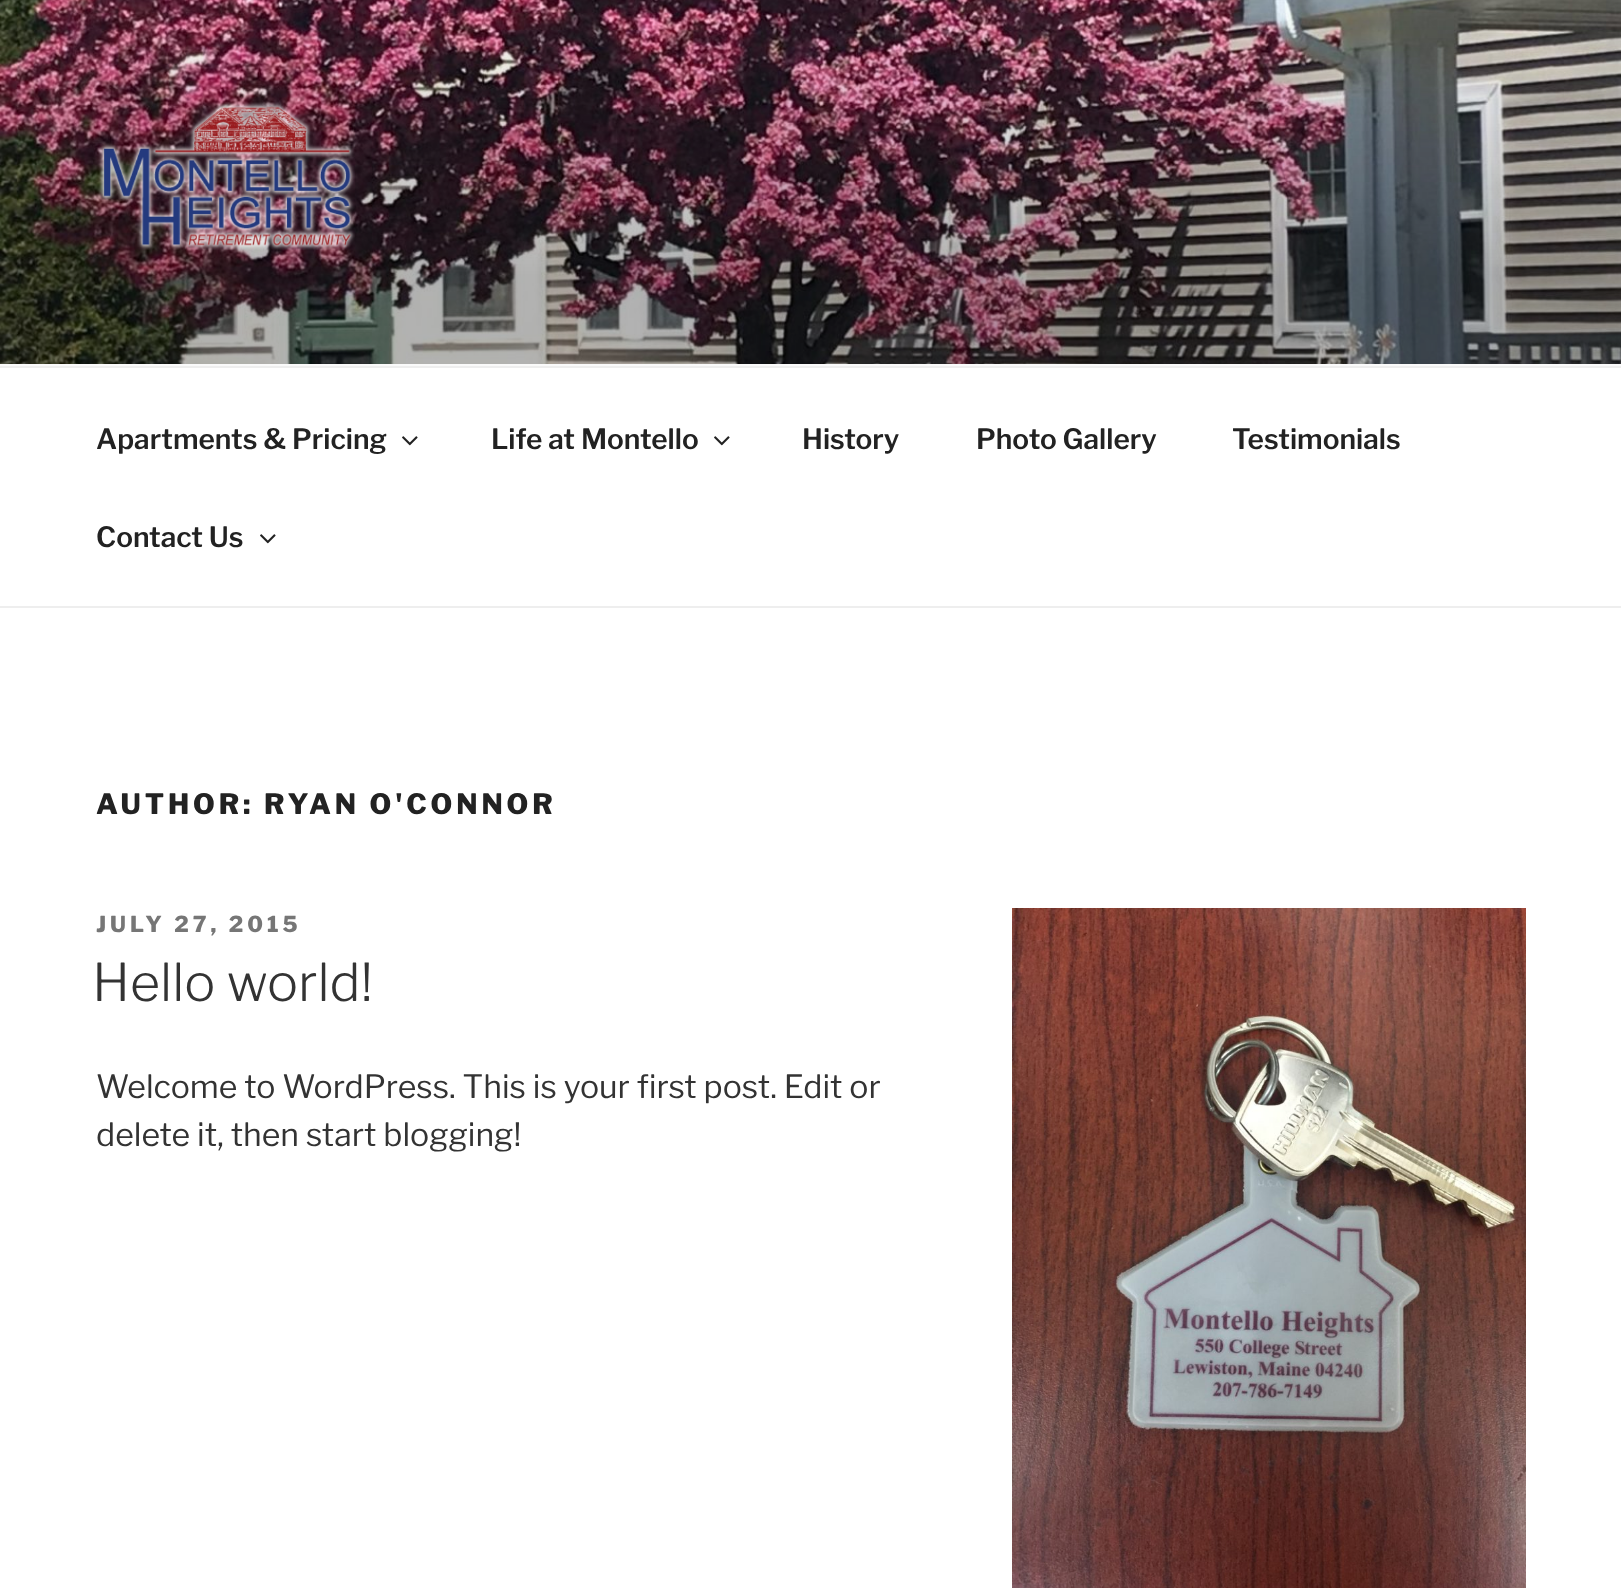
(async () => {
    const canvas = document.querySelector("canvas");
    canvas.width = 1621;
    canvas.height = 1588;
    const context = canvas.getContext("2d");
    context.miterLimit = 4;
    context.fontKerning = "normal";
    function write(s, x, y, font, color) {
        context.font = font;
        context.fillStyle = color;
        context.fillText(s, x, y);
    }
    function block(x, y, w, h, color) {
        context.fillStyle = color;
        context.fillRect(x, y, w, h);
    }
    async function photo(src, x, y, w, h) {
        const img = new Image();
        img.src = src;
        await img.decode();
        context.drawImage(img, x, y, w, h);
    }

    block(0, 0, 1621, 1588, "rgb(255, 255, 255)");
    block(0, 364, 1621, 2, "rgb(250, 250, 250)");
    await photo("media/1.png", 0, 0, 1621, 364);
    await photo("media/2.png", 98, 102, 257, 148);
    block(0, 366, 1621, 2, "rgb(238, 238, 238)");
    block(0, 606, 1621, 2, "rgb(238, 238, 238)");
    write("Apartments & Pricing", 96, 449, "100 28px 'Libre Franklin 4'", "rgb(34, 34, 34)");
    await photo("media/3.png", 402, 436, 16, 10);
    write("Life at Montello", 491, 449, "100 28px 'Libre Franklin 4'", "rgb(34, 34, 34)");
    await photo("media/3.png", 714, 436, 16, 10);
    write("History", 802, 449, "100 28px 'Libre Franklin 4'", "rgb(34, 34, 34)");
    write("Photo Gallery", 976, 449, "100 28px 'Libre Franklin 4'", "rgb(34, 34, 34)");
    write("Testimonials", 1232, 449, "100 28px 'Libre Franklin 4'", "rgb(34, 34, 34)");
    write("Contact Us", 96, 547, "100 28px 'Libre Franklin 4'", "rgb(34, 34, 34)");
    await photo("media/3.png", 260, 534, 16, 10);
    context.letterSpacing = "3.9px";
    write("AUTHOR: RYAN O'CONNOR", 96, 814, "100 28px Libre Franklin", "rgb(34, 34, 34)");
    context.letterSpacing = "4px";
    write("JULY 27, 2015", 96, 932, "100 22px Libre Franklin", "rgb(118, 118, 118)");
    context.letterSpacing = "0px";
    write("Hello world!", 92, 1001, "100 52px 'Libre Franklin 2'", "rgb(51, 51, 51)");
    write("Welcome to WordPress. This is your first post. Edit or", 96, 1098, "100 32px 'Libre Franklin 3'", "rgb(51, 51, 51)");
    write("delete it, then start blogging!", 96, 1146, "100 32px 'Libre Franklin 3'", "rgb(51, 51, 51)");
    await photo("media/4.png", 1012, 908, 514, 680);
})();
